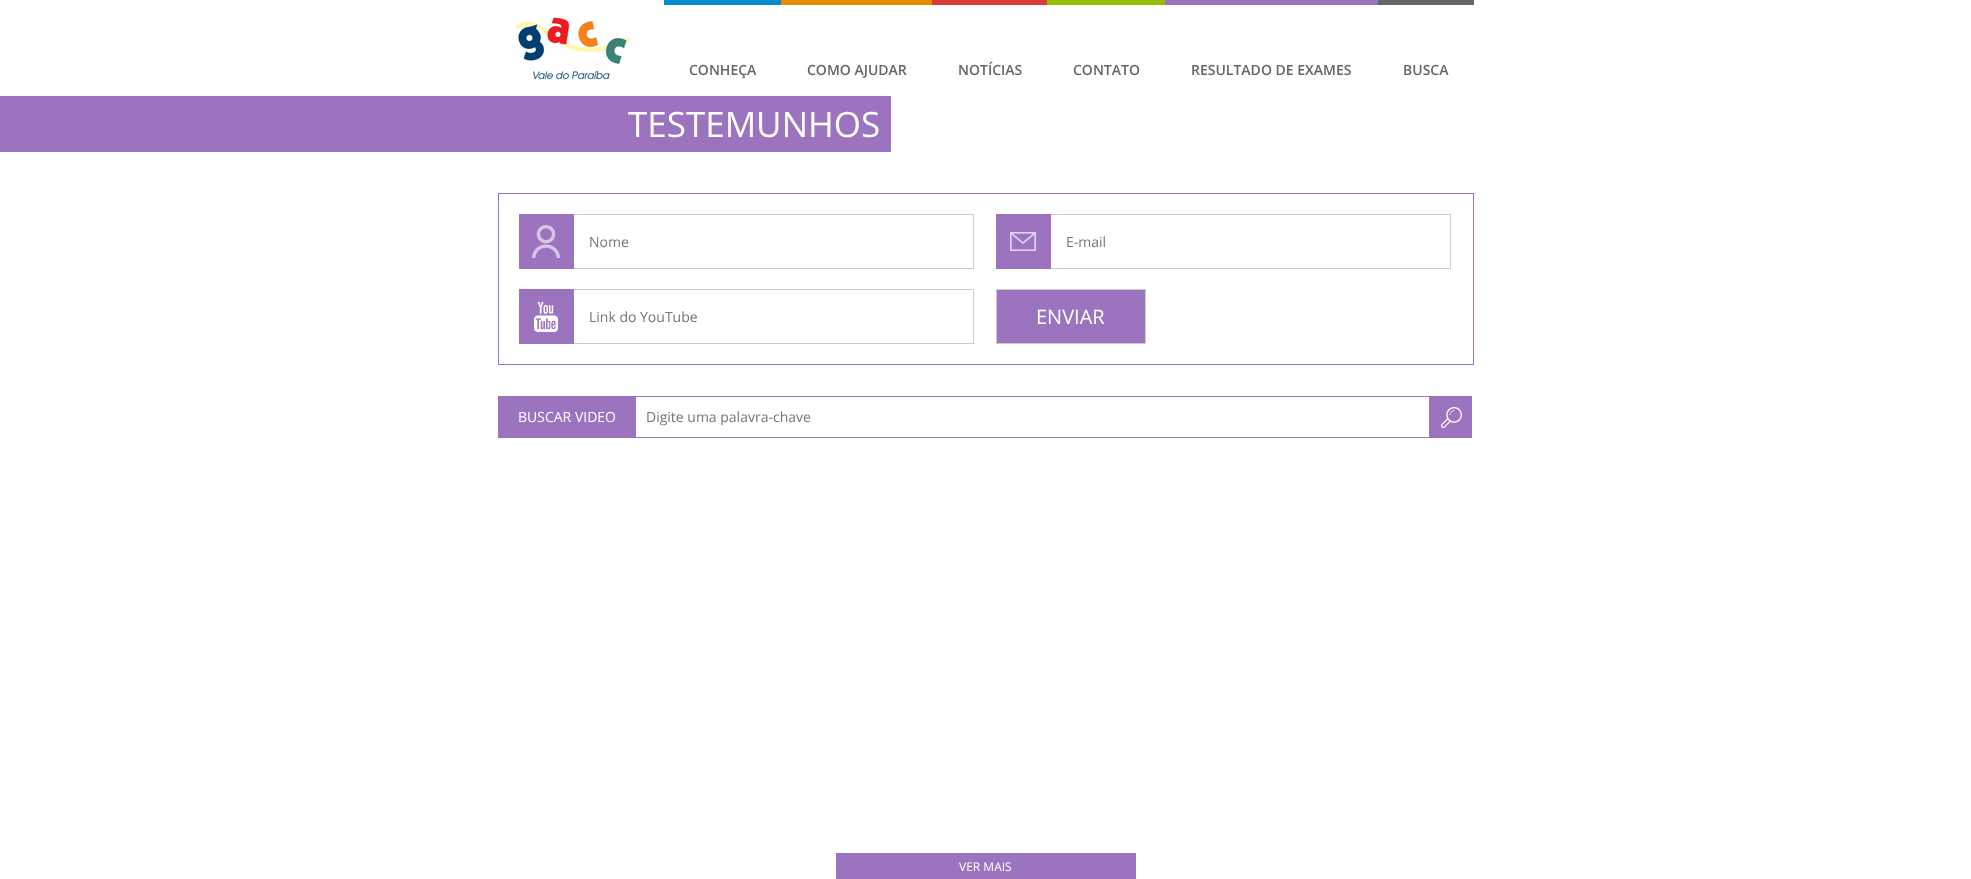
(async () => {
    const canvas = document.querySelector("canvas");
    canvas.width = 1971;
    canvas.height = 879;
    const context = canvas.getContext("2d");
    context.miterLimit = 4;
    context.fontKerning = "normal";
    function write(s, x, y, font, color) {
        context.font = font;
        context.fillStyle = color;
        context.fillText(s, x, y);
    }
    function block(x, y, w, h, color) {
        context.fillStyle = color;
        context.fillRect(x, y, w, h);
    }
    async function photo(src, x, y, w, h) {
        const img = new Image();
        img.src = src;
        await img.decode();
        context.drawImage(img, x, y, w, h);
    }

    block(0, 0, 1971, 879, "rgb(255, 255, 255)");
    await photo("media/1.png", 515, 17, 116, 63);
    block(664, 0, 117, 5, "rgb(0, 140, 204)");
    write("CONHEÇA", 689, 75, "600 14px Open Sans", "rgb(102, 102, 102)");
    block(781, 0, 151, 5, "rgb(230, 138, 0)");
    write("COMO AJUDAR", 807, 75, "600 14px Open Sans", "rgb(102, 102, 102)");
    block(932, 0, 115, 5, "rgb(217, 58, 55)");
    write("NOTÍCIAS", 958, 75, "600 14px Open Sans", "rgb(102, 102, 102)");
    block(1047, 0, 118, 5, "rgb(150, 190, 0)");
    write("CONTATO", 1073, 75, "600 14px Open Sans", "rgb(102, 102, 102)");
    block(1165, 0, 213, 5, "rgb(156, 115, 191)");
    write("RESULTADO DE EXAMES", 1191, 75, "600 14px Open Sans", "rgb(102, 102, 102)");
    block(1378, 0, 96, 5, "rgb(102, 102, 102)");
    write("BUSCA", 1403, 75, "600 14px Open Sans", "rgb(102, 102, 102)");
    block(0, 96, 891, 56, "rgb(156, 115, 191)");
    write("TESTEMUNHOS", 628, 137, "35px Open Sans", "rgb(255, 255, 255)");
    context.strokeStyle = "rgb(156, 115, 191)";
    context.strokeRect(498.5, 193.5, 975, 171);
    block(519, 214, 55, 55, "rgb(156, 115, 191)");
    await photo("media/2.png", 532, 225, 28, 33);
    block(574, 214, 400, 1, "rgb(204, 204, 204)");
    block(973, 214, 1, 55, "rgb(204, 204, 204)");
    block(574, 268, 400, 1, "rgb(204, 204, 204)");
    write("Nome", 589, 247, "14px Open Sans", "rgb(117, 117, 117)");
    block(996, 214, 55, 55, "rgb(156, 115, 191)");
    await photo("media/3.png", 1010, 232, 26, 19);
    block(1051, 214, 400, 1, "rgb(204, 204, 204)");
    block(1450, 214, 1, 55, "rgb(204, 204, 204)");
    block(1051, 268, 400, 1, "rgb(204, 204, 204)");
    write("E-mail", 1066, 247, "14px Open Sans", "rgb(117, 117, 117)");
    block(519, 289, 55, 55, "rgb(156, 115, 191)");
    await photo("media/4.png", 534, 302, 24, 30);
    block(574, 289, 400, 1, "rgb(204, 204, 204)");
    block(973, 289, 1, 55, "rgb(204, 204, 204)");
    block(574, 343, 400, 1, "rgb(204, 204, 204)");
    write("Link do YouTube", 589, 322, "14px Open Sans", "rgb(117, 117, 117)");
    context.fillStyle = "rgb(156, 115, 191)";
    context.beginPath();
    context.rect(996.5, 289.5, 149, 54);
    context.fill();
    context.strokeStyle = "rgb(204, 204, 204)";
    context.stroke();
    write("ENVIAR", 1036, 324, "20px Open Sans", "rgb(255, 255, 255)");
    block(498, 396, 137, 42, "rgb(156, 115, 191)");
    write("BUSCAR VIDEO", 518, 422, "14px Open Sans", "rgb(255, 255, 255)");
    context.strokeStyle = "rgb(156, 115, 191)";
    context.strokeRect(635.5, 396.5, 794, 41);
    write("Digite uma palavra-chave", 646, 422, "14px Open Sans", "rgb(117, 117, 117)");
    block(1430, 396, 42, 42, "rgb(156, 115, 191)");
    await photo("media/5.png", 1441, 407, 21, 21);
    block(836, 853, 300, 26, "rgb(156, 115, 191)");
    write("VER MAIS", 959, 871, "12px Open Sans", "rgb(255, 255, 255)");
})();
